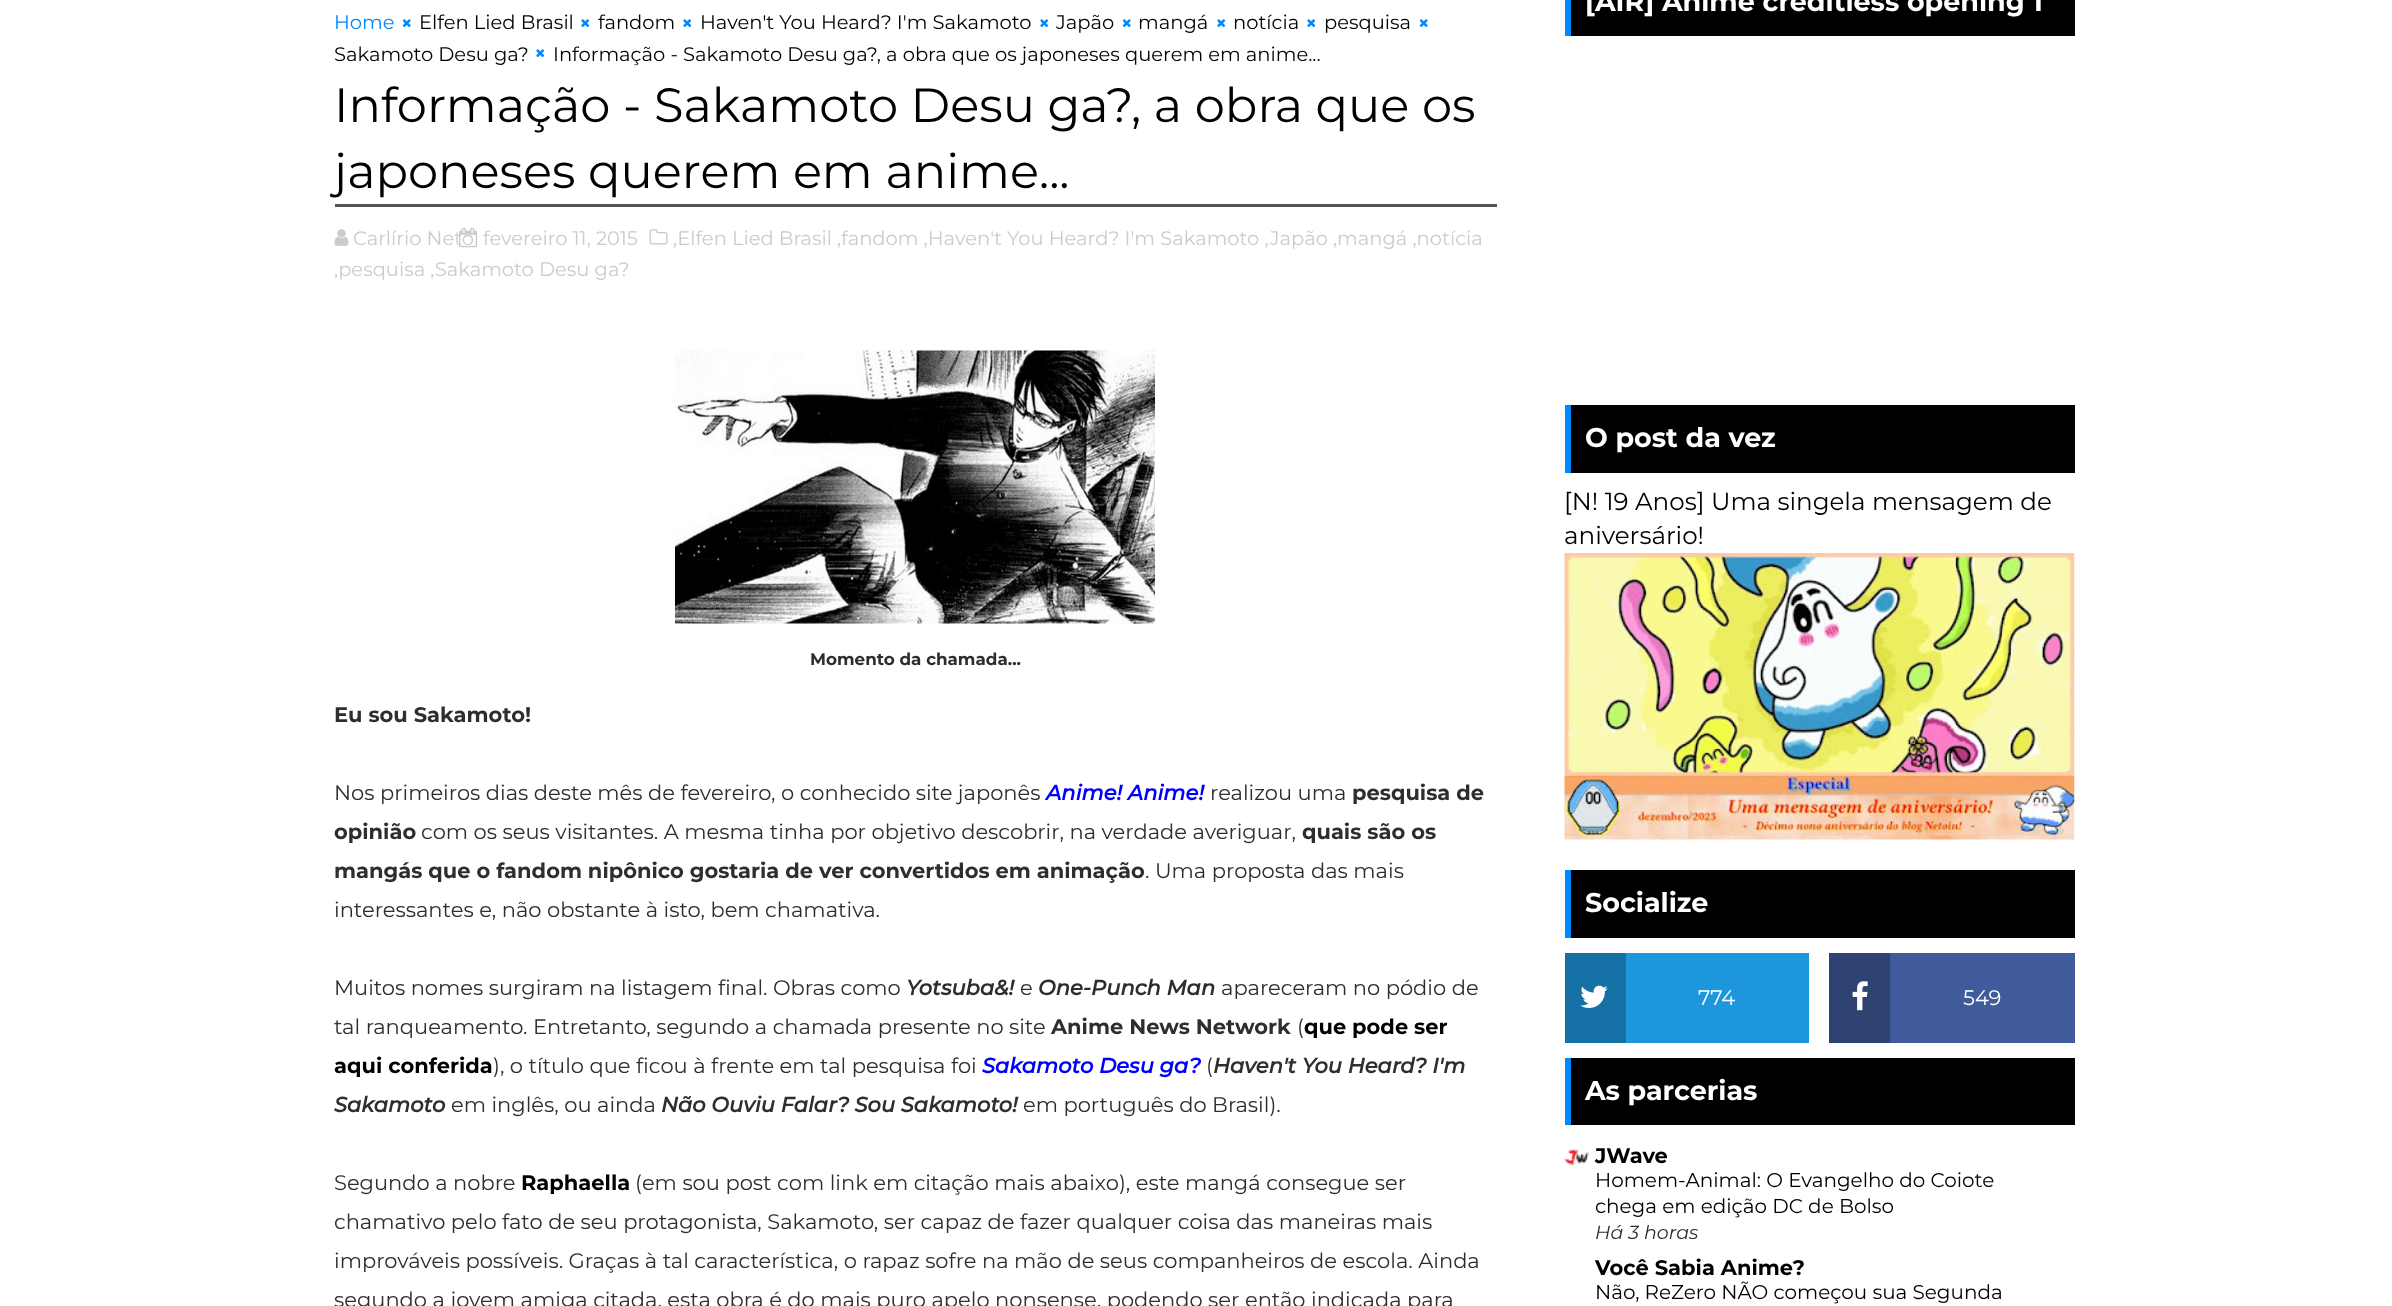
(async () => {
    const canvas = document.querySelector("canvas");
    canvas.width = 2392;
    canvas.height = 1306;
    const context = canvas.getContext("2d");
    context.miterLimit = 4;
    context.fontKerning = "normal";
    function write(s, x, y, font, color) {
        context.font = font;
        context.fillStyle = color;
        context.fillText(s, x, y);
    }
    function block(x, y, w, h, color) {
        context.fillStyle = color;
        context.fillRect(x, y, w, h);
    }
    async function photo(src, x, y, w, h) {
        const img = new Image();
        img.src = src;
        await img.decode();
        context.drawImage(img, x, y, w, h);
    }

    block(0, 0, 2392, 1306, "rgb(255, 255, 255)");
    write("Home", 334, 29, "100 19.5px Montserrat", "rgb(0, 136, 255)");
    await photo("media/1.png", 402, 19, 9, 9);
    write("Elfen Lied Brasil", 419, 29, "100 19.5px Montserrat", "rgb(0, 0, 0)");
    await photo("media/2.png", 581, 19, 9, 9);
    write("fandom", 598, 29, "100 19.5px Montserrat", "rgb(0, 0, 0)");
    await photo("media/2.png", 683, 19, 9, 9);
    write("Haven't You Heard? I'm Sakamoto", 700, 29, "100 19.5px Montserrat", "rgb(0, 0, 0)");
    await photo("media/2.png", 1040, 19, 9, 9);
    write("Japão", 1056, 29, "100 19.5px Montserrat", "rgb(0, 0, 0)");
    await photo("media/1.png", 1122, 19, 9, 9);
    write("mangá", 1138, 29, "100 19.5px Montserrat", "rgb(0, 0, 0)");
    await photo("media/2.png", 1217, 19, 9, 9);
    write("notícia", 1233, 29, "100 19.5px Montserrat", "rgb(0, 0, 0)");
    await photo("media/2.png", 1307, 19, 9, 9);
    write("pesquisa", 1324, 29, "100 19.5px Montserrat", "rgb(0, 0, 0)");
    await photo("media/1.png", 1419, 19, 9, 9);
    write("Sakamoto Desu ga?", 334, 61, "100 19.5px Montserrat", "rgb(0, 0, 0)");
    await photo("media/2.png", 536, 49, 9, 9);
    write("Informação - Sakamoto Desu ga?, a obra que os japoneses querem em anime...", 553, 61, "100 19.5px Montserrat", "rgb(0, 0, 0)");
    block(335, 204, 1162, 3, "rgb(85, 85, 85)");
    write("Informação - Sakamoto Desu ga?, a obra que os", 334, 122, "100 48px Montserrat", "rgb(0, 0, 0)");
    write("japoneses querem em anime...", 334, 188, "100 48px Montserrat", "rgb(0, 0, 0)");
    await photo("media/3.png", 649, 229, 19, 16);
    write(",Elfen Lied Brasil ,fandom ,Haven't You Heard? I'm Sakamoto ,Japão ,mangá ,notícia", 673, 245, "100 19.5px Montserrat", "rgb(203, 203, 203)");
    write(",pesquisa ,Sakamoto Desu ga?", 334, 276, "100 19.5px Montserrat", "rgb(203, 203, 203)");
    await photo("media/4.png", 334, 229, 15, 17);
    write("Carlírio Neto", 353, 245, "100 19.5px Montserrat", "rgb(203, 203, 203)");
    await photo("media/5.png", 459, 227, 19, 21);
    write("fevereiro 11, 2015", 483, 245, "100 19.5px Montserrat", "rgb(203, 203, 203)");
    await photo("media/6.png", 675, 350, 480, 274);
    write("Momento da chamada...", 810, 665, "100 16.75px 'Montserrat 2'", "rgb(46, 46, 46)");
    write("Eu sou Sakamoto!", 334, 722, "100 21px 'Montserrat 2'", "rgb(46, 46, 46)");
    write("Nos primeiros dias deste mês de fevereiro, o conhecido site japonês", 334, 800, "100 21px Montserrat", "rgb(46, 46, 46)");
    write("Anime! Anime!", 1046, 800, "italic bold 21px Montserrat", "rgb(0, 0, 255)");
    write("realizou uma", 1210, 800, "100 21px Montserrat", "rgb(46, 46, 46)");
    write("pesquisa de", 1352, 800, "100 21px 'Montserrat 2'", "rgb(46, 46, 46)");
    write("opinião", 334, 839, "100 21px 'Montserrat 2'", "rgb(46, 46, 46)");
    write("com os seus visitantes. A mesma tinha por objetivo descobrir, na verdade averiguar,", 421, 839, "100 21px Montserrat", "rgb(46, 46, 46)");
    write("quais são os", 1302, 839, "100 21px 'Montserrat 2'", "rgb(46, 46, 46)");
    write("mangás que o fandom nipônico gostaria de ver convertidos em animação", 334, 878, "100 21px 'Montserrat 2'", "rgb(46, 46, 46)");
    write(". Uma proposta das mais", 1145, 878, "100 21px Montserrat", "rgb(46, 46, 46)");
    write("interessantes e, não obstante à isto, bem chamativa.", 334, 917, "100 21px Montserrat", "rgb(46, 46, 46)");
    write("Muitos nomes surgiram na listagem final. Obras como", 334, 995, "100 21px Montserrat", "rgb(46, 46, 46)");
    write("Yotsuba&!", 906, 995, "italic bold 21px Montserrat", "rgb(46, 46, 46)");
    write("e", 1020, 995, "100 21px Montserrat", "rgb(46, 46, 46)");
    write("One-Punch Man", 1038, 995, "italic bold 21px Montserrat", "rgb(46, 46, 46)");
    write("apareceram no pódio de", 1221, 995, "100 21px Montserrat", "rgb(46, 46, 46)");
    write("tal ranqueamento. Entretanto, segundo a chamada presente no site", 334, 1034, "100 21px Montserrat", "rgb(46, 46, 46)");
    write("Anime News Network", 1051, 1034, "100 21px 'Montserrat 2'", "rgb(46, 46, 46)");
    write("(", 1297, 1034, "100 21px Montserrat", "rgb(46, 46, 46)");
    write("que pode ser", 1304, 1034, "100 21px 'Montserrat 2'", "rgb(0, 0, 0)");
    write("aqui conferida", 334, 1073, "100 21px 'Montserrat 2'", "rgb(0, 0, 0)");
    write("), o título que ficou à frente em tal pesquisa foi", 493, 1073, "100 21px Montserrat", "rgb(46, 46, 46)");
    write("Sakamoto Desu ga?", 982, 1073, "italic bold 21px Montserrat", "rgb(0, 0, 255)");
    write("(", 1206, 1073, "100 21px Montserrat", "rgb(46, 46, 46)");
    write("Haven't You Heard? I'm", 1213, 1073, "italic bold 21px Montserrat", "rgb(46, 46, 46)");
    write("Sakamoto", 334, 1112, "italic bold 21px Montserrat", "rgb(46, 46, 46)");
    write("em inglês, ou ainda", 451, 1112, "100 21px Montserrat", "rgb(46, 46, 46)");
    write("Não Ouviu Falar? Sou Sakamoto!", 661, 1112, "italic bold 21px Montserrat", "rgb(46, 46, 46)");
    write("em português do Brasil).", 1023, 1112, "100 21px Montserrat", "rgb(46, 46, 46)");
    write("Segundo a nobre", 334, 1190, "100 21px Montserrat", "rgb(46, 46, 46)");
    write("Raphaella", 521, 1190, "100 21px 'Montserrat 2'", "rgb(0, 0, 0)");
    write("(em sou post com link em citação mais abaixo), este mangá consegue ser", 635, 1190, "100 21px Montserrat", "rgb(46, 46, 46)");
    write("chamativo pelo fato de seu protagonista, Sakamoto, ser capaz de fazer qualquer coisa das maneiras mais", 334, 1229, "100 21px Montserrat", "rgb(46, 46, 46)");
    write("improváveis possíveis. Graças à tal característica, o rapaz sofre na mão de seus companheiros de escola. Ainda", 334, 1268, "100 21px Montserrat", "rgb(46, 46, 46)");
    write("segundo a jovem amiga citada, esta obra é do mais puro apelo nonsense, podendo ser então indicada para", 334, 1307, "100 21px Montserrat", "rgb(46, 46, 46)");
    block(1571, 0, 504, 36, "rgb(0, 0, 0)");
    block(1565, 0, 6, 36, "rgb(0, 136, 255)");
    write("[AIR] Anime creditless opening 1", 1585, 11, "100 27px 'Montserrat 2'", "rgb(255, 255, 255)");
    block(1571, 405, 504, 68, "rgb(0, 0, 0)");
    block(1565, 405, 6, 68, "rgb(0, 136, 255)");
    write("O post da vez", 1585, 447, "100 27px 'Montserrat 2'", "rgb(255, 255, 255)");
    write("[N! 19 Anos] Uma singela mensagem de", 1564, 510, "100 24.6px Montserrat", "rgb(0, 0, 0)");
    write("aniversário!", 1564, 544, "100 24.6px Montserrat", "rgb(0, 0, 0)");
    await photo("media/7.png", 1564, 553, 511, 287);
    block(1571, 870, 504, 68, "rgb(0, 0, 0)");
    block(1565, 870, 6, 68, "rgb(0, 136, 255)");
    write("Socialize", 1585, 912, "100 27px 'Montserrat 2'", "rgb(255, 255, 255)");
    block(1626, 953, 183, 90, "rgb(28, 151, 222)");
    block(1565, 953, 61, 90, "rgb(21, 113, 165)");
    await photo("media/8.png", 1580, 985, 28, 23);
    write("774", 1698, 1005, "100 21px Montserrat", "rgb(255, 255, 255)");
    block(1890, 953, 185, 90, "rgb(63, 91, 155)");
    block(1829, 953, 61, 90, "rgb(46, 67, 114)");
    await photo("media/9.png", 1852, 981, 16, 30);
    write("549", 1963, 1005, "100 21px Montserrat", "rgb(255, 255, 255)");
    block(1571, 1058, 504, 67, "rgb(0, 0, 0)");
    block(1565, 1058, 6, 67, "rgb(0, 136, 255)");
    write("As parcerias", 1585, 1100, "100 27px 'Montserrat 2'", "rgb(255, 255, 255)");
    await photo("media/10.png", 1564, 1149, 25, 17);
    write("JWave", 1595, 1163, "100 21px 'Montserrat 2'", "rgb(0, 0, 0)");
    write("Homem-Animal: O Evangelho do Coiote", 1595, 1187, "100 19.95px Montserrat", "rgb(0, 0, 0)");
    write("chega em edição DC de Bolso", 1595, 1213, "100 19.95px Montserrat", "rgb(0, 0, 0)");
    write("Há 3 horas", 1595, 1239, "italic 19px Montserrat", "rgb(46, 46, 46)");
    write("Você Sabia Anime?", 1595, 1275, "100 21px 'Montserrat 2'", "rgb(0, 0, 0)");
    write("Não, ReZero NÃO começou sua Segunda", 1595, 1299, "100 19.95px Montserrat", "rgb(0, 0, 0)");
})();
